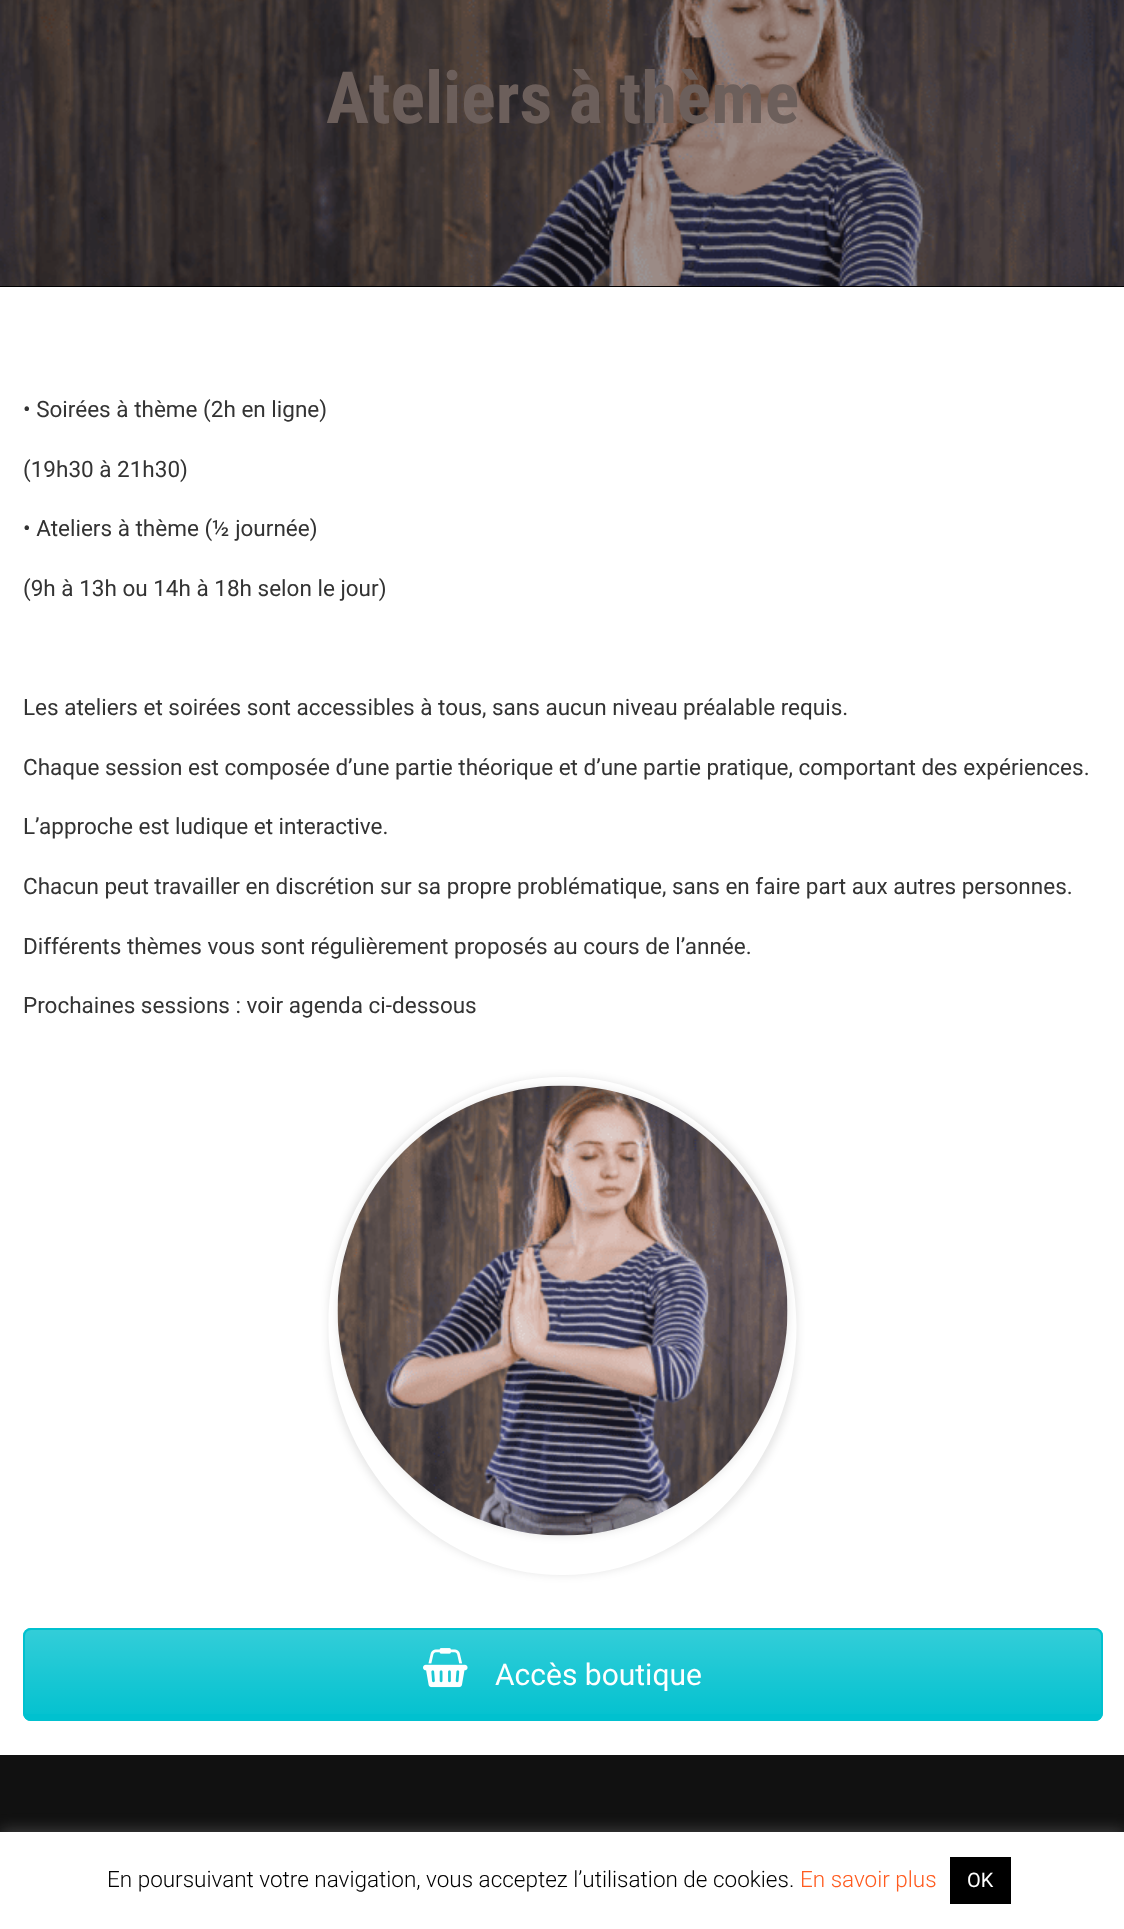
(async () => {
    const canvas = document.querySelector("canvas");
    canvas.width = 1124;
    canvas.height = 1929;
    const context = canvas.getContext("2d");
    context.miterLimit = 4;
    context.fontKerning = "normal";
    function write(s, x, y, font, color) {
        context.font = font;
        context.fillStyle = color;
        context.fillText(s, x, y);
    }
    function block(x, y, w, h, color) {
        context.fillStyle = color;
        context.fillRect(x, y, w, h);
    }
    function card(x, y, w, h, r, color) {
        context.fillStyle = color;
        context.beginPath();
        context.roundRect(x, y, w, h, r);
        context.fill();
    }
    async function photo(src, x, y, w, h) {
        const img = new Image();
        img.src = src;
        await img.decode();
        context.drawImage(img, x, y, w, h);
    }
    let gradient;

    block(0, 0, 1124, 1929, "rgb(255, 255, 255)");
    block(0, 0, 1124, 287, "rgb(0, 0, 0)");
    await photo("media/1.png", 0, 0, 1124, 286);
    write("Ateliers à thème", 326, 123, "bold 72px Roboto Condensed", "rgb(108, 95, 91)");
    write("• Soirées à thème (2h en ligne)", 23, 417, "22.5px Roboto", "rgb(51, 51, 51)");
    write("(19h30 à 21h30)", 23, 477, "22.5px Roboto", "rgb(51, 51, 51)");
    write("• Ateliers à thème (½ journée)", 23, 536, "22.5px Roboto", "rgb(51, 51, 51)");
    write("(9h à 13h ou 14h à 18h selon le jour)", 23, 596, "22.5px Roboto", "rgb(51, 51, 51)");
    write("Les ateliers et soirées sont accessibles à tous, sans aucun niveau préalable requis.", 23, 715, "22.5px Roboto", "rgb(51, 51, 51)");
    write("Chaque session est composée d’une partie théorique et d’une partie pratique, comportant des expériences.", 23, 775, "22.5px Roboto", "rgb(51, 51, 51)");
    write("L’approche est ludique et interactive.", 23, 834, "22.5px Roboto", "rgb(51, 51, 51)");
    write("Chacun peut travailler en discrétion sur sa propre problématique, sans en faire part aux autres personnes.", 23, 894, "22.5px Roboto", "rgb(51, 51, 51)");
    write("Différents thèmes vous sont régulièrement proposés au cours de l’année.", 23, 954, "22.5px Roboto", "rgb(51, 51, 51)");
    write("Prochaines sessions : voir agenda ci-dessous", 23, 1013, "22.5px Roboto", "rgb(51, 51, 51)");
    context.save();
    context.beginPath();
    context.moveTo(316, 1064);
    context.lineTo(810, 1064);
    context.lineTo(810, 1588);
    context.lineTo(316, 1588);
    context.closePath();
    context.moveTo(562.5, 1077);
    context.bezierCurveTo(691.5, 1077, 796.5, 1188.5, 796.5, 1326);
    context.bezierCurveTo(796.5, 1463.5, 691.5, 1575, 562.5, 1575);
    context.bezierCurveTo(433.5, 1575, 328.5, 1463.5, 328.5, 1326);
    context.bezierCurveTo(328.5, 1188.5, 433.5, 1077, 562.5, 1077);
    context.closePath();
    context.clip("evenodd");
    context.fillStyle = "rgba(0, 0, 0, 0.1)";
    context.filter = "blur(4px)";
    context.beginPath();
    context.roundRect(329, 1077, 468, 498, 234);
    context.fill();
    context.filter = "none";
    context.restore();
    context.fillStyle = "rgba(0, 0, 0, 0.1)";
    context.filter = "blur(4px)";
    context.beginPath();
    context.roundRect(338, 1086, 450, 450, 225);
    context.fill();
    context.filter = "none";
    await photo("media/2.png", 337, 1085, 451, 451);
    card(23, 1628, 1080, 93, 8, "rgb(0, 193, 207)");
    context.save();
    context.beginPath();
    context.roundRect(23, 1628, 1080, 93, 8);
    context.clip();
    gradient = context.createLinearGradient(563, 1629, 563, 1719);
    gradient.addColorStop(0, "rgba(255, 255, 255, 0.2)");
    gradient.addColorStop(1, "rgba(255, 255, 255, 0.01)");
    context.fillStyle = gradient;
    context.fillRect(23, 1629, 1080, 85);
    context.restore();
    context.beginPath();
    context.roundRect(24, 1629, 1078, 91, 7);
    context.strokeStyle = "rgb(0, 193, 207)";
    context.lineWidth = 2;
    context.stroke();
    await photo("media/3.png", 423, 1648, 45, 40);
    write("Accès boutique", 495, 1685, "30px Roboto", "rgb(255, 255, 255)");
    block(0, 1755, 1124, 77, "rgb(17, 17, 17)");
    context.fillStyle = "rgba(172, 171, 171, 0.3)";
    context.filter = "blur(7.5px)";
    context.beginPath();
    context.rect(0, 1830, 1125, 98);
    context.fill();
    context.filter = "none";
    block(0, 1832, 1124, 97, "rgb(255, 255, 255)");
    write("En poursuivant votre navigation, vous acceptez l’utilisation de cookies.", 107, 1887, "300 22.5px Roboto", "rgb(0, 0, 0)");
    write("En savoir plus", 800, 1887, "300 22.5px Roboto", "rgb(255, 90, 30)");
    block(950, 1857, 61, 47, "rgb(0, 0, 0)");
    write("OK", 967, 1887, "20px Roboto", "rgb(255, 255, 255)");
})();
